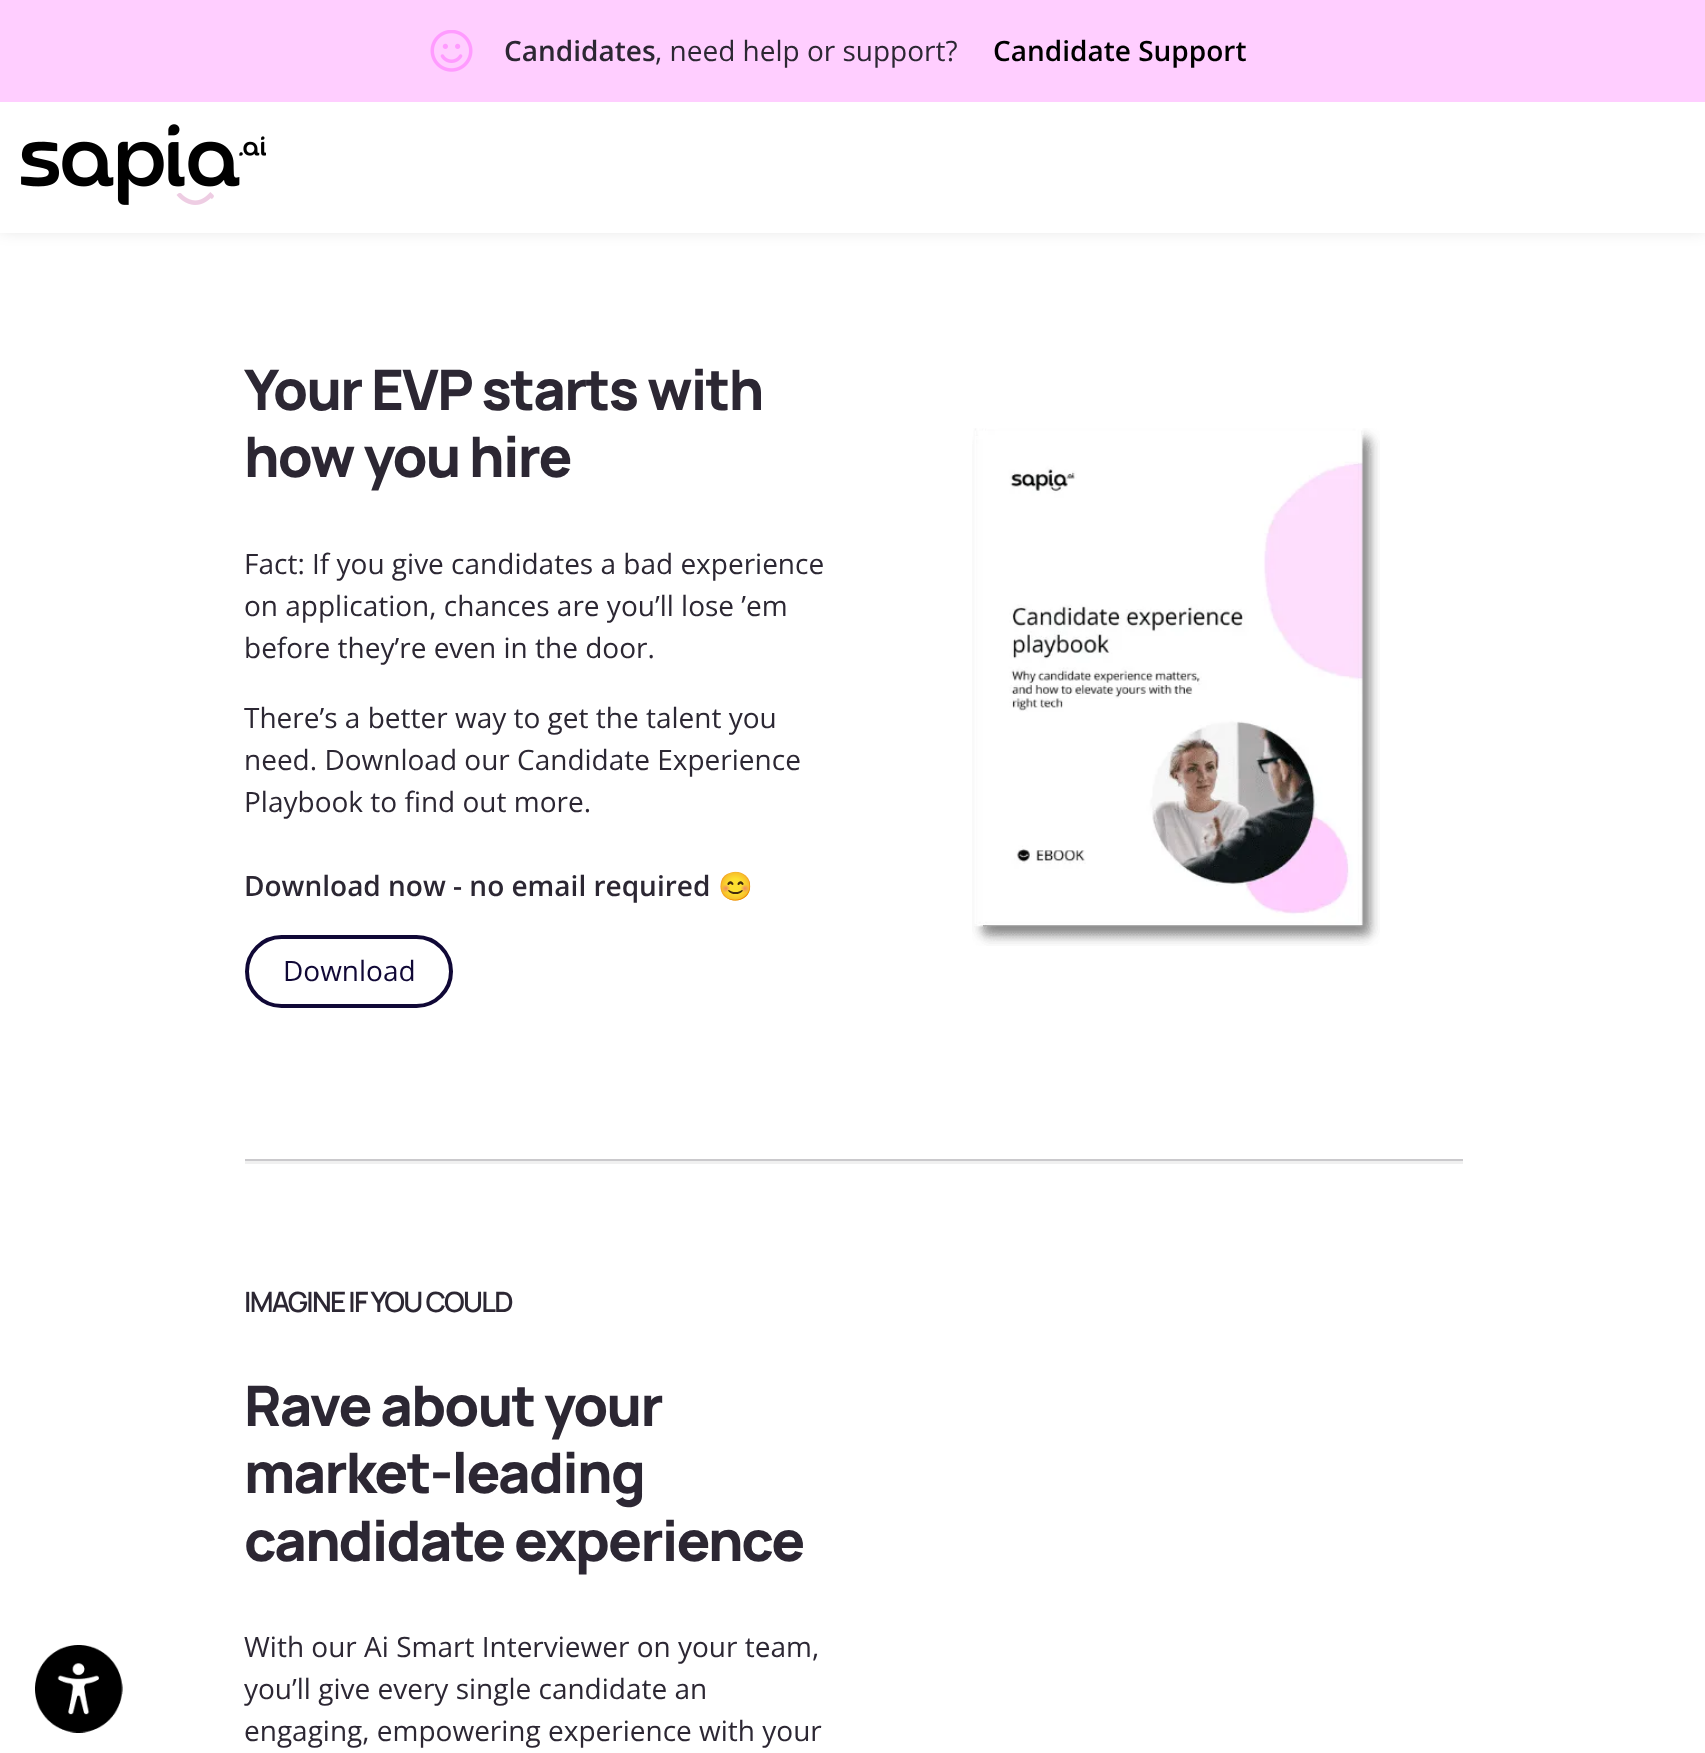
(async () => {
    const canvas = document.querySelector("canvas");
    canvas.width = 1705;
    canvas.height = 1753;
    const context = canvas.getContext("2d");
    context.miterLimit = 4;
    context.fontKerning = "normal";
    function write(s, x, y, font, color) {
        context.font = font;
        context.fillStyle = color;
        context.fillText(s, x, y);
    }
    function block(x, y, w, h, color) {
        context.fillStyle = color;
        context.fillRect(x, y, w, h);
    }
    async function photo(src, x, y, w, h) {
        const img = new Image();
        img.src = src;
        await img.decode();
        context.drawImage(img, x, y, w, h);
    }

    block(0, 0, 1705, 1753, "rgb(255, 255, 255)");
    context.fillStyle = "rgba(0, 0, 0, 0.16)";
    context.filter = "blur(9px)";
    context.beginPath();
    context.rect(0, -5, 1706, 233);
    context.fill();
    context.filter = "none";
    block(0, 102, 1705, 131, "rgb(255, 255, 255)");
    block(0, 0, 1705, 102, "rgb(255, 206, 255)");
    await photo("media/1.png", 430, 30, 43, 42);
    write("Candidates", 504, 61, "600 28px Open Sans", "rgb(44, 39, 51)");
    write(", need help or support?", 655, 61, "28px Open Sans", "rgb(44, 39, 51)");
    write("Candidate Support", 993, 61, "600 28px Open Sans", "rgb(0, 0, 0)");
    await photo("media/2.png", 21, 124, 245, 81);
    context.letterSpacing = "-1.75px";
    write("Your EVP starts with", 244, 410, "800 56px Manrope", "rgb(44, 39, 51)");
    write("how you hire", 244, 477, "800 56px Manrope", "rgb(44, 39, 51)");
    context.letterSpacing = "0px";
    write("Fact: If you give candidates a bad experience", 244, 574, "28px Open Sans", "rgb(44, 39, 51)");
    write("on application, chances are you’ll lose ’em", 244, 616, "28px Open Sans", "rgb(44, 39, 51)");
    write("before they’re even in the door.", 244, 658, "28px Open Sans", "rgb(44, 39, 51)");
    write("There’s a better way to get the talent you", 244, 728, "28px Open Sans", "rgb(44, 39, 51)");
    write("need. Download our Candidate Experience", 244, 770, "28px Open Sans", "rgb(44, 39, 51)");
    write("Playbook to find out more.", 244, 812, "28px Open Sans", "rgb(44, 39, 51)");
    write("Download now - no email required", 244, 896, "600 28px Open Sans", "rgb(44, 39, 51)");
    write("😊", 718, 896, "bold 28px Noto Color Emoji", "rgb(44, 39, 51)");
    context.beginPath();
    context.roundRect(247, 937, 204, 69, 34.5);
    context.strokeStyle = "rgb(16, 8, 54)";
    context.lineWidth = 4;
    context.stroke();
    write("Download", 283, 981, "28px Open Sans", "rgb(16, 8, 54)");
    await photo("media/3.png", 972, 428, 408, 518);
    block(245, 1161, 1218, 3, "rgb(240, 240, 240)");
    block(245, 1159, 1218, 2, "rgb(202, 201, 204)");
    await photo("media/4.png", 35, 1645, 88, 88);
    context.letterSpacing = "-1.75px";
    write("IMAGINE IF YOU COULD", 244, 1312, "600 28px Manrope", "rgb(44, 39, 51)");
    write("Rave about your", 244, 1426, "800 56px Manrope", "rgb(44, 39, 51)");
    write("market-leading", 244, 1493, "800 56px Manrope", "rgb(44, 39, 51)");
    write("candidate experience", 244, 1561, "800 56px Manrope", "rgb(44, 39, 51)");
    context.letterSpacing = "0px";
    write("With our Ai Smart Interviewer on your team,", 244, 1657, "28px Open Sans", "rgb(44, 39, 51)");
    write("you’ll give every single candidate an", 244, 1699, "28px Open Sans", "rgb(44, 39, 51)");
    write("engaging, empowering experience with your", 244, 1741, "28px Open Sans", "rgb(44, 39, 51)");
})();
